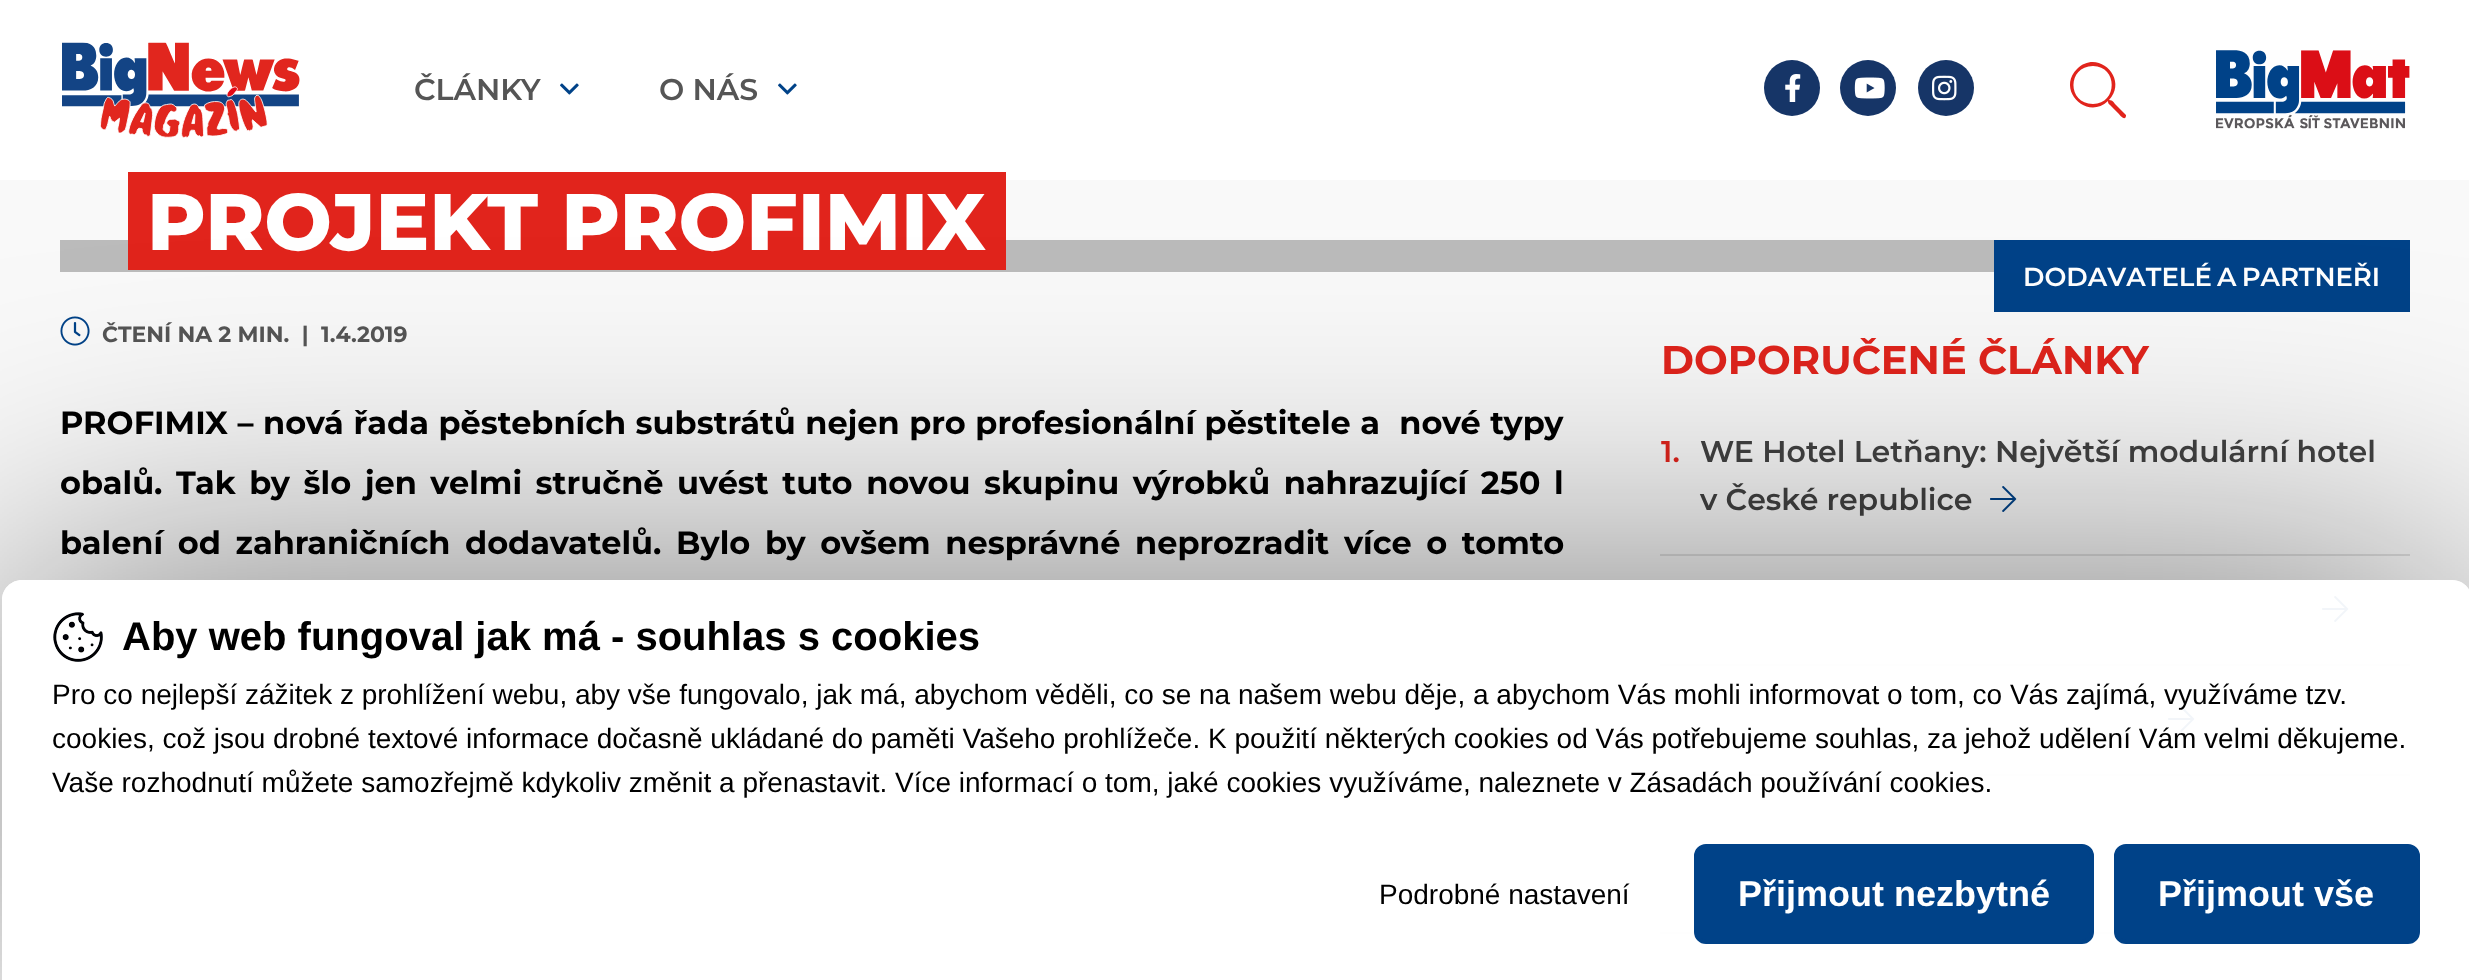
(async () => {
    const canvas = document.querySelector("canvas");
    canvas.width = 2469;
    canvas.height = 980;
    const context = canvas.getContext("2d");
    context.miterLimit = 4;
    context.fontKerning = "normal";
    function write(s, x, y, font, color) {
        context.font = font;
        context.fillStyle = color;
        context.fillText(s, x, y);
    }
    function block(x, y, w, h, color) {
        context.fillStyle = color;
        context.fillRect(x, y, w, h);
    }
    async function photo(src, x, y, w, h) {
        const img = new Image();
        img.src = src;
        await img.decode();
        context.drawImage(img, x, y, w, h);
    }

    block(0, 0, 2469, 980, "rgb(249, 249, 249)");
    block(0, 0, 2469, 180, "rgb(255, 255, 255)");
    await photo("media/1.png", 62, 42, 238, 96);
    write("ČLÁNKY", 414, 100, "600 30px Montserrat", "rgb(85, 85, 85)");
    await photo("media/2.png", 560, 83, 19, 12);
    write("O NÁS", 659, 100, "600 30px Montserrat", "rgb(85, 85, 85)");
    await photo("media/2.png", 778, 83, 19, 12);
    context.fillStyle = "rgb(22, 53, 103)";
    context.beginPath();
    context.arc(1792, 88, 28, 0, Math.PI * 2);
    context.fill();
    await photo("media/3.png", 1785, 74, 16, 28);
    context.beginPath();
    context.arc(1868, 88, 28, 0, Math.PI * 2);
    context.fill();
    await photo("media/4.png", 1854, 77, 31, 22);
    context.beginPath();
    context.arc(1946, 88, 28, 0, Math.PI * 2);
    context.fill();
    await photo("media/5.png", 1932, 75, 25, 26);
    context.fillStyle = "rgb(225, 36, 28)";
    context.beginPath();
    context.moveTo(2126, 115);
    context.lineTo(2116, 105);
    context.bezierCurveTo(2114, 103, 2113, 100, 2109, 100);
    context.bezierCurveTo(2129, 79, 2098, 48, 2077, 69);
    context.bezierCurveTo(2056, 90, 2087, 121, 2108, 101);
    context.bezierCurveTo(2108, 104, 2109, 104, 2111, 106);
    context.lineTo(2118, 113);
    context.bezierCurveTo(2119, 114, 2125, 122, 2126, 116);
    context.closePath();
    context.moveTo(2093, 104);
    context.bezierCurveTo(2067, 104, 2067, 66, 2093, 66);
    context.bezierCurveTo(2118, 66, 2118, 104, 2093, 104);
    context.closePath();
    context.fill();
    await photo("media/6.png", 2216, 50, 194, 79);
    block(60, 240, 1934, 32, "rgb(187, 187, 187)");
    block(148, 172, 858, 98, "rgb(225, 36, 28)");
    write("PROJEKT PROFIMIX", 147, 250, "800 80px Montserrat", "rgb(255, 255, 255)");
    block(128, 172, 20, 98, "rgb(225, 36, 28)");
    block(1994, 240, 416, 72, "rgb(0, 66, 136)");
    context.wordSpacing = "-2px";
    write("DODAVATELÉ A PARTNEŘI", 2023, 286, "600 26px Montserrat", "rgb(255, 255, 255)");
    await photo("media/7.png", 60, 316, 30, 30);
    context.wordSpacing = "0px";
    write("ČTENÍ NA 2 MIN.  |  1.4.2019", 102, 342, "bold 22px Montserrat", "rgb(85, 85, 85)");
    block(60, 774, 1504, 2, "rgb(223, 223, 223)");
    context.wordSpacing = "0.5px";
    write("PROFIMIX – nová řada pěstebních substrátů nejen pro profesionální pěstitele a  nové typy", 60, 434, "bold 32px Montserrat", "rgb(0, 0, 0)");
    context.wordSpacing = "4.5px";
    write("obalů. Tak by šlo jen velmi stručně uvést tuto novou skupinu výrobků nahrazující 250 l", 60, 494, "bold 32px Montserrat", "rgb(0, 0, 0)");
    context.wordSpacing = "5.6px";
    write("balení od zahraničních dodavatelů. Bylo by ovšem nesprávné neprozradit více o tomto", 60, 554, "bold 32px Montserrat", "rgb(0, 0, 0)");
    context.wordSpacing = "0px";
    write("DOPORUČENÉ ČLÁNKY", 1661, 374, "bold 40px Montserrat", "rgb(225, 36, 28)");
    block(1660, 554, 750, 2, "rgb(223, 223, 223)");
    write("1.", 1661, 462, "600 30px Montserrat", "rgb(225, 36, 28)");
    write("WE Hotel Letňany: Největší modulární hotel", 1700, 462, "600 30px Montserrat", "rgb(66, 66, 66)");
    write("v České republice", 1700, 510, "600 30px Montserrat", "rgb(66, 66, 66)");
    await photo("media/8.png", 1990, 486, 27, 26);
    block(1660, 664, 750, 2, "rgb(223, 223, 223)");
    await photo("media/8.png", 2322, 596, 27, 26);
    block(1660, 774, 750, 2, "rgb(223, 223, 223)");
    await photo("media/8.png", 2168, 706, 27, 26);
    block(1660, 932, 455, 2, "rgb(223, 223, 223)");
    context.save();
    context.beginPath();
    context.moveTo(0, 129);
    context.lineTo(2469, 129);
    context.lineTo(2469, 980);
    context.lineTo(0, 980);
    context.closePath();
    context.moveTo(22, 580);
    context.lineTo(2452, 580);
    context.bezierCurveTo(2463, 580, 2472, 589, 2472, 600);
    context.lineTo(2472, 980);
    context.lineTo(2, 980);
    context.lineTo(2, 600);
    context.bezierCurveTo(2, 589, 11, 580, 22, 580);
    context.closePath();
    context.clip("evenodd");
    context.fillStyle = "rgba(0, 0, 0, 0.5)";
    context.filter = "blur(150px)";
    context.beginPath();
    context.roundRect(2, 580, 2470, 400, 20);
    context.fill();
    context.filter = "none";
    context.restore();
    context.fillStyle = "rgba(255, 255, 255, 0.95)";
    context.beginPath();
    context.moveTo(22, 580);
    context.lineTo(2452, 580);
    context.bezierCurveTo(2463, 580, 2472, 589, 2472, 600);
    context.lineTo(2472, 980);
    context.lineTo(2, 980);
    context.lineTo(2, 600);
    context.bezierCurveTo(2, 589, 11, 580, 22, 580);
    context.closePath();
    context.fill();
    await photo("media/9.png", 53, 612, 50, 50);
    write("Aby web fungoval jak má - souhlas s cookies", 122, 650, "bold 40px Liberation Sans", "rgb(0, 0, 0)");
    write("Pro co nejlepší zážitek z prohlížení webu, aby vše fungovalo, jak má, abychom věděli, co se na našem webu děje, a abychom Vás mohli informovat o tom, co Vás zajímá, využíváme tzv.", 52, 704, "28px Liberation Sans", "rgb(0, 0, 0)");
    write("cookies, což jsou drobné textové informace dočasně ukládané do paměti Vašeho prohlížeče. K použití některých cookies od Vás potřebujeme souhlas, za jehož udělení Vám velmi děkujeme.", 52, 748, "28px Liberation Sans", "rgb(0, 0, 0)");
    write("Vaše rozhodnutí můžete samozřejmě kdykoliv změnit a přenastavit. Více informací o tom, jaké cookies využíváme, naleznete v Zásadách používání cookies.", 52, 792, "28px Liberation Sans", "rgb(0, 0, 0)");
    write("Podrobné nastavení", 1379, 904, "28px Liberation Sans", "rgb(0, 0, 0)");
    context.fillStyle = "rgb(0, 66, 136)";
    context.beginPath();
    context.roundRect(1696, 846, 396, 96, 10);
    context.fill();
    context.strokeStyle = "rgb(0, 66, 136)";
    context.lineWidth = 4;
    context.stroke();
    write("Přijmout nezbytné", 1738, 906, "bold 36px Liberation Sans", "rgb(255, 255, 255)");
    context.fillStyle = "rgb(0, 66, 136)";
    context.beginPath();
    context.roundRect(2116, 846, 302, 96, 10);
    context.fill();
    context.stroke();
    write("Přijmout vše", 2158, 906, "bold 36px Liberation Sans", "rgb(255, 255, 255)");
})();
